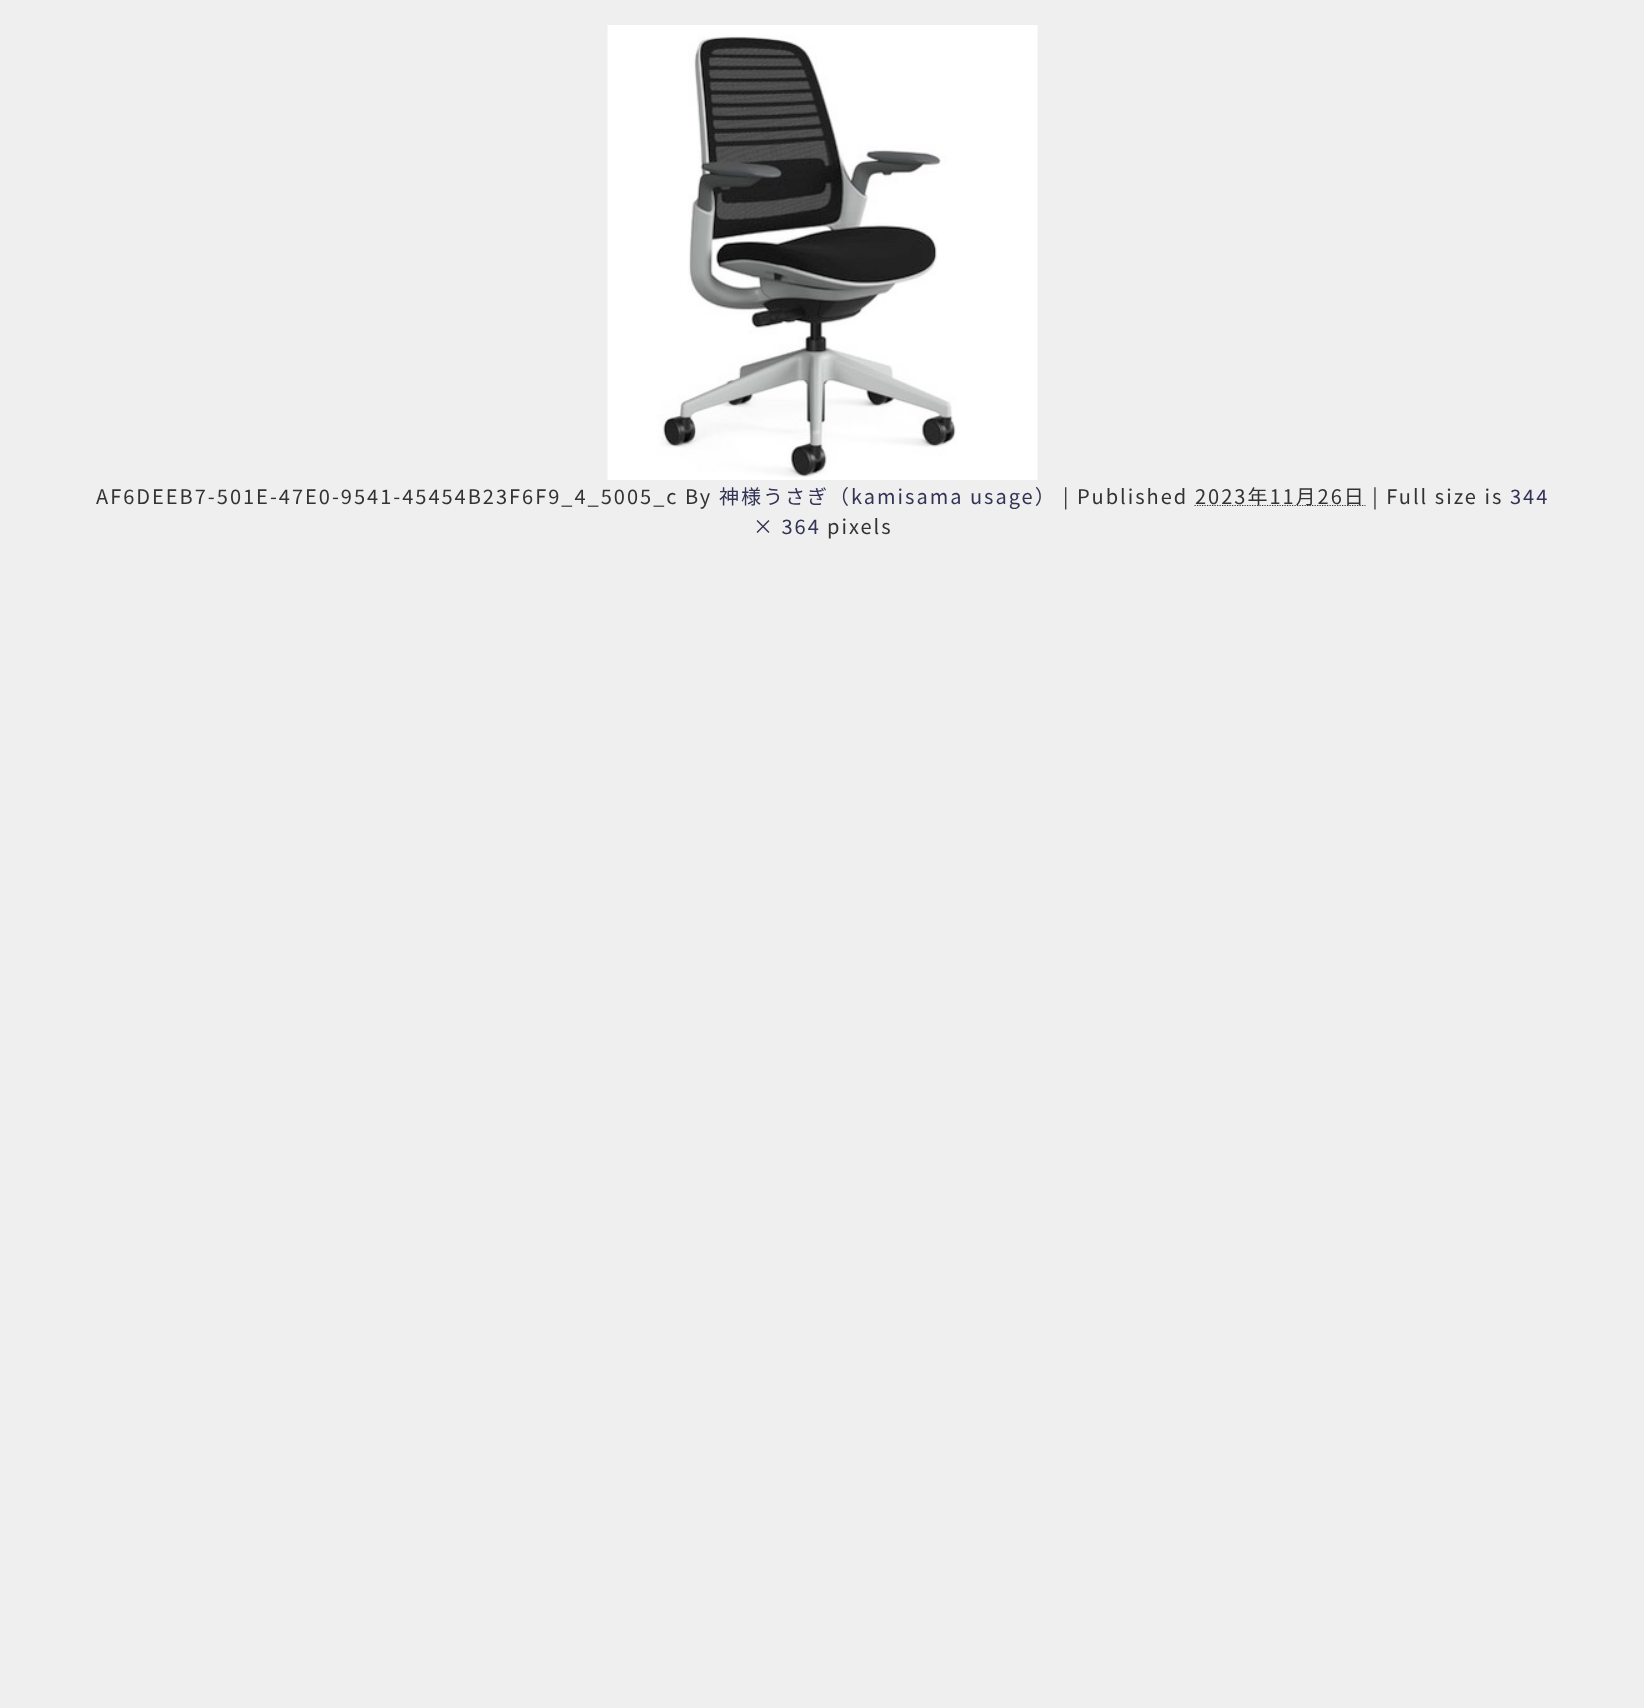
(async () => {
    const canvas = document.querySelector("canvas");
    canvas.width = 1644;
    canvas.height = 1708;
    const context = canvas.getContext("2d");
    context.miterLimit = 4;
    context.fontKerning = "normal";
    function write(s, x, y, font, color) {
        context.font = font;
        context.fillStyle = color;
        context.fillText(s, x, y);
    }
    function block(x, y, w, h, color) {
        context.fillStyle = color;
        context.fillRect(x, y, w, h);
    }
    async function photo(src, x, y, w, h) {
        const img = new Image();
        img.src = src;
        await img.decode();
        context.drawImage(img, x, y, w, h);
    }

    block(0, 0, 1644, 1708, "rgb(239, 239, 239)");
    await photo("media/1.png", 607, 25, 431, 455);
    context.letterSpacing = "2px";
    write("AF6DEEB7-501E-47E0-9541-45454B23F6F9_4_5005_c By", 96, 504, "20px Noto Sans JP", "rgb(51, 51, 51)");
    write("神様うさぎ（kamisama usage）", 719, 504, "20px Noto Sans JP", "rgb(51, 51, 85)");
    write("| Published", 1063, 504, "20px Noto Sans JP", "rgb(51, 51, 51)");
    context.beginPath();
    context.moveTo(1194.5, 505.5);
    context.lineTo(1365.5, 505.5);
    context.strokeStyle = "rgb(51, 51, 51)";
    context.lineWidth = 1.2;
    context.setLineDash([1.25, 1.25]);
    context.stroke();
    write("2023年11月26日 | Full size is", 1195, 504, "20px Noto Sans JP", "rgb(51, 51, 51)");
    write("344", 1510, 504, "20px Noto Sans JP", "rgb(51, 51, 85)");
    write("× 364", 753, 534, "20px Noto Sans JP", "rgb(51, 51, 85)");
    write("pixels", 827, 534, "20px Noto Sans JP", "rgb(51, 51, 51)");
})();
